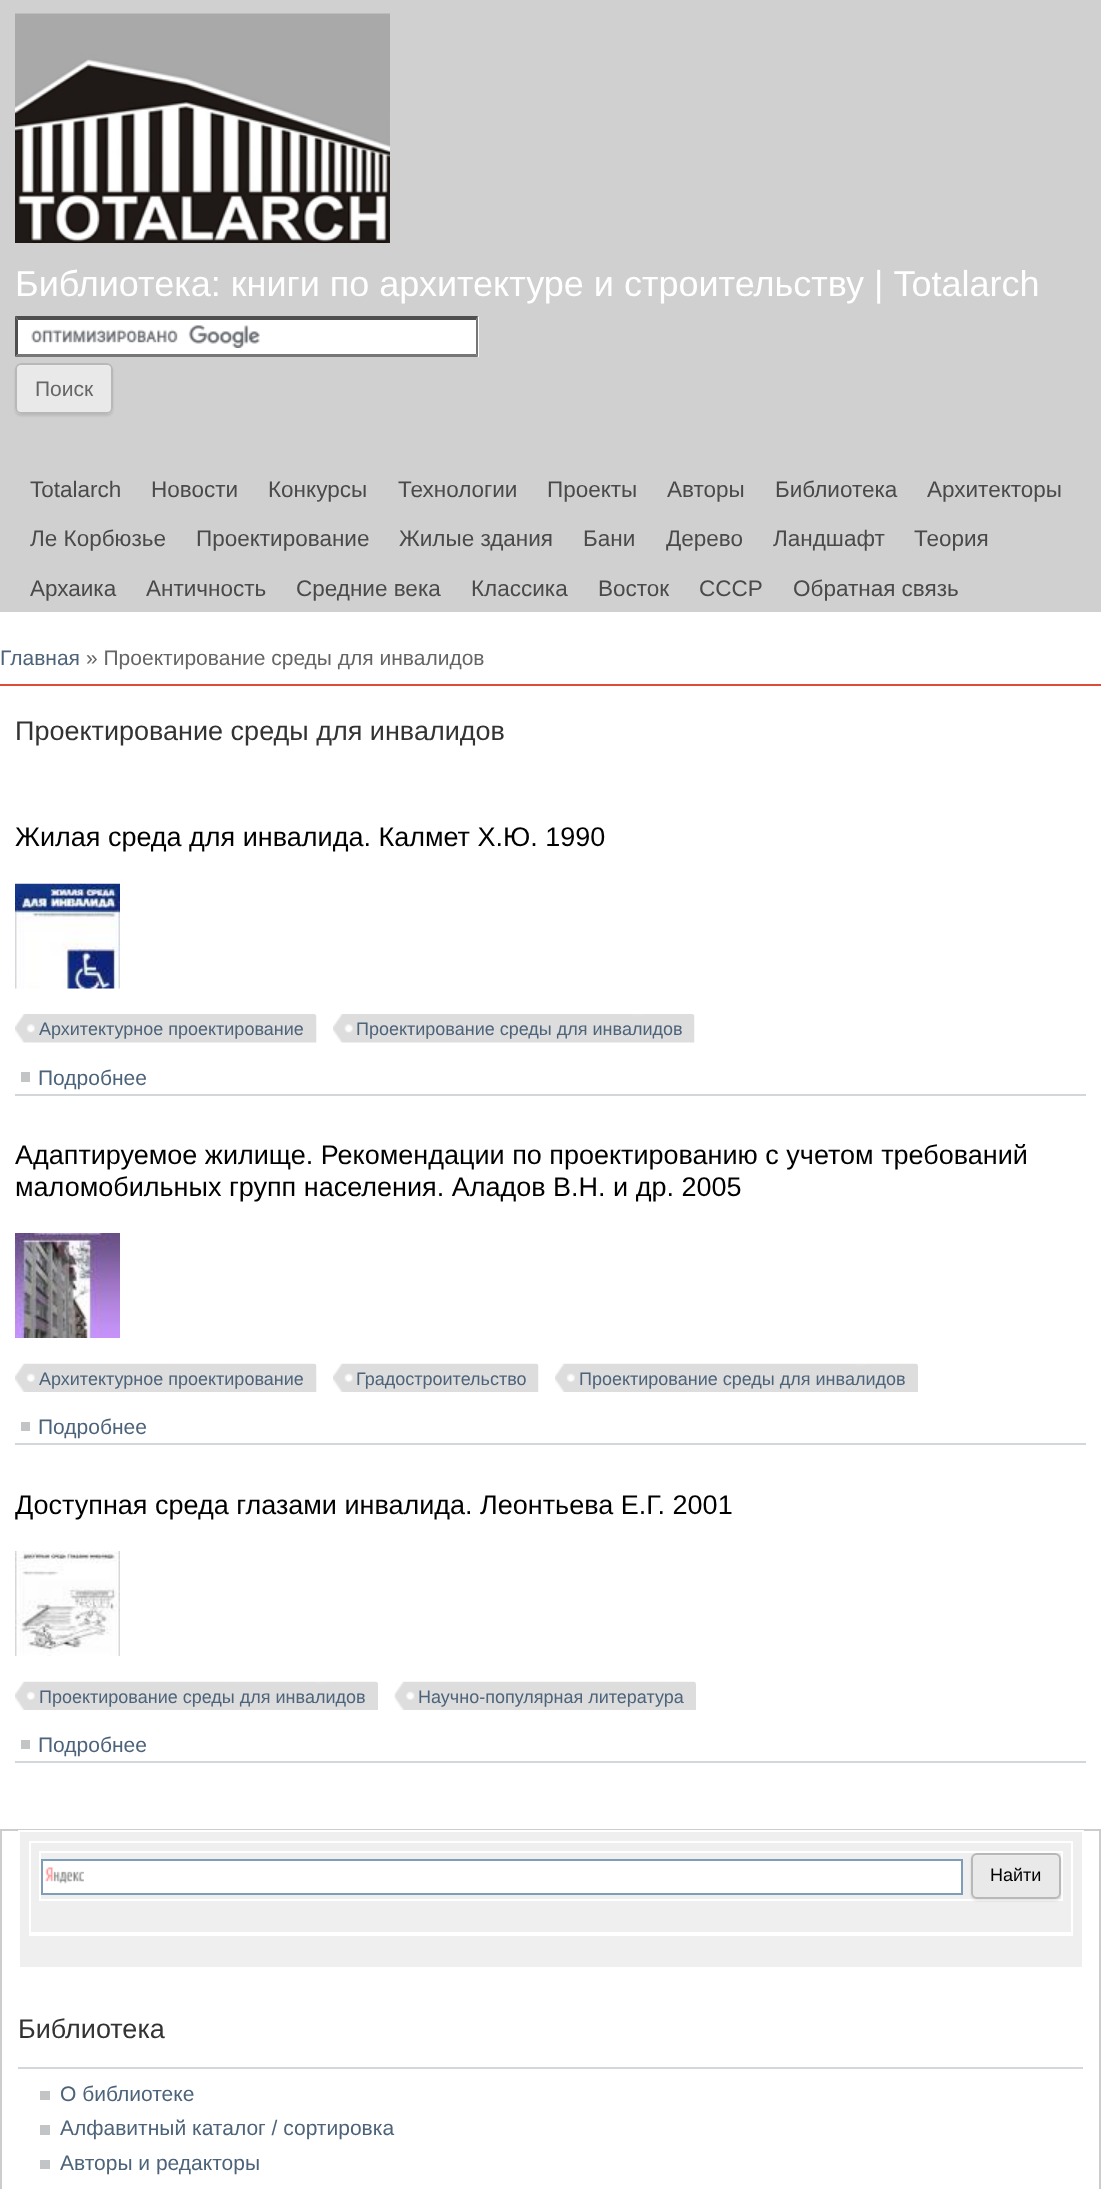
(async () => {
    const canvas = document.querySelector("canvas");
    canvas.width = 1101;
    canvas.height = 2189;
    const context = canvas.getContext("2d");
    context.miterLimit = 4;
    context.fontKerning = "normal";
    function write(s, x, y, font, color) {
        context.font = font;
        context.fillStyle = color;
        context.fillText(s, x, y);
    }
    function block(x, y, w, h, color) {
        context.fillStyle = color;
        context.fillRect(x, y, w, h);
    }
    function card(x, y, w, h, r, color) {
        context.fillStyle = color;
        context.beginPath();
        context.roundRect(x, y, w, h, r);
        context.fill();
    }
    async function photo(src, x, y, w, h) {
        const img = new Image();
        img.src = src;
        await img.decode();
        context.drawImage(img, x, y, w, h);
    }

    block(0, 0, 1101, 2189, "rgb(255, 255, 255)");
    block(0, 0, 1101, 612, "rgb(208, 208, 208)");
    await photo("media/1.png", 15, 13, 375, 230);
    write("Библиотека: книги по архитектуре и строительству | Totalarch", 15, 296, "36px Liberation Sans", "rgb(255, 255, 255)");
    block(15, 317, 464, 40, "rgb(255, 255, 255)");
    await photo("media/2.png", 31, 325, 229, 23);
    context.fillStyle = "rgb(79, 79, 79)";
    context.beginPath();
    context.moveTo(15, 316);
    context.lineTo(478, 316);
    context.lineTo(476, 320);
    context.lineTo(18, 320);
    context.closePath();
    context.fill();
    context.fillStyle = "rgb(118, 118, 118)";
    context.beginPath();
    context.moveTo(478, 316);
    context.lineTo(478, 357);
    context.lineTo(476, 354);
    context.lineTo(476, 320);
    context.closePath();
    context.fill();
    context.beginPath();
    context.moveTo(478, 357);
    context.lineTo(15, 357);
    context.lineTo(18, 354);
    context.lineTo(476, 354);
    context.closePath();
    context.fill();
    context.fillStyle = "rgb(79, 79, 79)";
    context.beginPath();
    context.moveTo(15, 357);
    context.lineTo(15, 316);
    context.lineTo(18, 320);
    context.lineTo(18, 354);
    context.closePath();
    context.fill();
    context.fillStyle = "rgba(0, 0, 0, 0.1)";
    context.filter = "blur(1px)";
    context.beginPath();
    context.roundRect(15, 365, 98, 51, 6);
    context.fill();
    context.filter = "none";
    card(15, 363, 98, 51, 6, "rgb(233, 233, 233)");
    context.fillStyle = "rgb(236, 236, 236)";
    context.beginPath();
    context.moveTo(21, 366);
    context.lineTo(106, 366);
    context.bezierCurveTo(109, 366, 111, 368, 111, 370);
    context.bezierCurveTo(111, 367, 109, 365, 106, 365);
    context.lineTo(22, 365);
    context.bezierCurveTo(20, 365, 19, 366, 18, 367);
    context.closePath();
    context.fill();
    context.beginPath();
    context.roundRect(16, 364, 96, 49, 5);
    context.strokeStyle = "rgb(184, 184, 184)";
    context.lineWidth = 2;
    context.stroke();
    write("Поиск", 35, 396, "21px Liberation Sans", "rgb(102, 102, 102)");
    write("Totalarch", 30, 497, "22.5px Liberation Sans", "rgb(74, 74, 74)");
    write("Новости", 151, 497, "22.5px Liberation Sans", "rgb(74, 74, 74)");
    write("Конкурсы", 268, 497, "22.5px Liberation Sans", "rgb(74, 74, 74)");
    write("Технологии", 398, 497, "22.5px Liberation Sans", "rgb(74, 74, 74)");
    write("Проекты", 547, 497, "22.5px Liberation Sans", "rgb(74, 74, 74)");
    write("Авторы", 667, 497, "22.5px Liberation Sans", "rgb(74, 74, 74)");
    write("Библиотека", 775, 497, "22.5px Liberation Sans", "rgb(74, 74, 74)");
    write("Архитекторы", 927, 497, "22.5px Liberation Sans", "rgb(74, 74, 74)");
    write("Ле Корбюзье", 30, 546, "22.5px Liberation Sans", "rgb(74, 74, 74)");
    write("Проектирование", 196, 546, "22.5px Liberation Sans", "rgb(74, 74, 74)");
    write("Жилые здания", 399, 546, "22.5px Liberation Sans", "rgb(74, 74, 74)");
    write("Бани", 583, 546, "22.5px Liberation Sans", "rgb(74, 74, 74)");
    write("Дерево", 666, 546, "22.5px Liberation Sans", "rgb(74, 74, 74)");
    write("Ландшафт", 773, 546, "22.5px Liberation Sans", "rgb(74, 74, 74)");
    write("Теория", 914, 546, "22.5px Liberation Sans", "rgb(74, 74, 74)");
    write("Архаика", 30, 596, "22.5px Liberation Sans", "rgb(74, 74, 74)");
    write("Античность", 146, 596, "22.5px Liberation Sans", "rgb(74, 74, 74)");
    write("Средние века", 296, 596, "22.5px Liberation Sans", "rgb(74, 74, 74)");
    write("Классика", 471, 596, "22.5px Liberation Sans", "rgb(74, 74, 74)");
    write("Восток", 598, 596, "22.5px Liberation Sans", "rgb(74, 74, 74)");
    write("СССР", 699, 596, "22.5px Liberation Sans", "rgb(74, 74, 74)");
    write("Обратная связь", 793, 596, "22.5px Liberation Sans", "rgb(74, 74, 74)");
    block(0, 684, 1101, 2, "rgb(219, 76, 57)");
    write("Главная", 0, 665, "21px Liberation Sans", "rgb(77, 99, 122)");
    write("» Проектирование среды для инвалидов", 86, 665, "21px Liberation Sans", "rgb(102, 102, 102)");
    write("Проектирование среды для инвалидов", 15, 740, "27px Liberation Sans", "rgb(51, 51, 51)");
    block(15, 1094, 1071, 2, "rgb(211, 215, 217)");
    write("Жилая среда для инвалида. Калмет Х.Ю. 1990", 15, 846, "27px Liberation Sans", "rgb(0, 0, 0)");
    await photo("media/3.png", 15, 883, 105, 106);
    await photo("media/4.png", 15, 1014, 302, 29);
    write("Архитектурное проектирование", 39, 1035, "18px Liberation Sans", "rgb(77, 99, 122)");
    await photo("media/5.png", 333, 1014, 362, 29);
    write("Проектирование среды для инвалидов", 356, 1035, "18px Liberation Sans", "rgb(77, 99, 122)");
    write("Подробнее", 38, 1085, "21px Liberation Sans", "rgb(77, 99, 122)");
    block(21, 1072, 9, 10, "rgb(194, 196, 197)");
    block(15, 1443, 1071, 2, "rgb(211, 215, 217)");
    write("Адаптируемое жилище. Рекомендации по проектированию с учетом требований", 15, 1164, "27px Liberation Sans", "rgb(0, 0, 0)");
    write("маломобильных групп населения. Аладов В.Н. и др. 2005", 15, 1196, "27px Liberation Sans", "rgb(0, 0, 0)");
    await photo("media/6.png", 15, 1233, 105, 105);
    await photo("media/7.png", 15, 1363, 302, 29);
    write("Архитектурное проектирование", 39, 1385, "18px Liberation Sans", "rgb(77, 99, 122)");
    await photo("media/8.png", 333, 1363, 206, 29);
    write("Градостроительство", 356, 1385, "18px Liberation Sans", "rgb(77, 99, 122)");
    await photo("media/9.png", 555, 1363, 363, 29);
    write("Проектирование среды для инвалидов", 579, 1385, "18px Liberation Sans", "rgb(77, 99, 122)");
    write("Подробнее", 38, 1434, "21px Liberation Sans", "rgb(77, 99, 122)");
    block(21, 1422, 9, 9, "rgb(194, 196, 197)");
    block(15, 1761, 1071, 2, "rgb(211, 215, 217)");
    write("Доступная среда глазами инвалида. Леонтьева Е.Г. 2001", 15, 1514, "27px Liberation Sans", "rgb(0, 0, 0)");
    await photo("media/10.png", 15, 1551, 105, 105);
    await photo("media/9.png", 15, 1681, 363, 29);
    write("Проектирование среды для инвалидов", 39, 1703, "18px Liberation Sans", "rgb(77, 99, 122)");
    await photo("media/11.png", 394, 1681, 302, 29);
    write("Научно-популярная литература", 418, 1703, "18px Liberation Sans", "rgb(77, 99, 122)");
    write("Подробнее", 38, 1752, "21px Liberation Sans", "rgb(77, 99, 122)");
    block(21, 1740, 9, 9, "rgb(194, 196, 197)");
    context.strokeStyle = "rgb(204, 204, 204)";
    context.strokeRect(1, 1830, 1099, 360);
    block(20, 1832, 1062, 135, "rgb(239, 239, 239)");
    block(18, 1830, 1066, 1, "rgb(255, 255, 255)");
    block(29, 1841, 1044, 2, "rgb(255, 255, 255)");
    block(1071, 1841, 2, 94, "rgb(255, 255, 255)");
    block(29, 1934, 1044, 2, "rgb(255, 255, 255)");
    block(29, 1841, 2, 94, "rgb(255, 255, 255)");
    block(39, 1851, 1023, 2, "rgb(255, 255, 255)");
    block(1061, 1851, 2, 50, "rgb(255, 255, 255)");
    block(39, 1899, 1023, 2, "rgb(255, 255, 255)");
    block(39, 1851, 2, 50, "rgb(255, 255, 255)");
    block(43, 1861, 918, 32, "rgb(255, 255, 255)");
    await photo("media/12.png", 45, 1867, 39, 17);
    context.strokeStyle = "rgb(127, 157, 185)";
    context.strokeRect(42, 1860, 920, 34);
    context.fillStyle = "rgba(0, 0, 0, 0.1)";
    context.filter = "blur(1px)";
    context.beginPath();
    context.roundRect(971, 1854, 90, 47, 6);
    context.fill();
    context.filter = "none";
    card(971, 1853, 90, 46, 6, "rgb(233, 233, 233)");
    context.fillStyle = "rgb(236, 236, 236)";
    context.beginPath();
    context.moveTo(976, 1856);
    context.lineTo(1054, 1856);
    context.bezierCurveTo(1057, 1856, 1059, 1858, 1059, 1860);
    context.bezierCurveTo(1059, 1851, 1047, 1854, 1041, 1854);
    context.lineTo(990, 1854);
    context.bezierCurveTo(984, 1854, 972, 1851, 972, 1860);
    context.bezierCurveTo(972, 1858, 974, 1856, 976, 1856);
    context.closePath();
    context.fill();
    context.beginPath();
    context.roundRect(972, 1854, 88, 44, 5);
    context.strokeStyle = "rgb(184, 184, 184)";
    context.stroke();
    write("Найти", 990, 1881, "18px Liberation Sans", "rgb(0, 0, 0)");
    block(29, 1932, 1044, 2, "rgb(255, 255, 255)");
    block(18, 2067, 1065, 2, "rgb(211, 215, 217)");
    write("Библиотека", 18, 2038, "27px Liberation Sans", "rgb(51, 51, 51)");
    block(40, 2091, 10, 9, "rgb(194, 196, 197)");
    write("О библиотеке", 60, 2101, "21px Liberation Sans", "rgb(77, 99, 122)");
    block(40, 2125, 10, 10, "rgb(194, 196, 197)");
    write("Алфавитный каталог / сортировка", 60, 2135, "21px Liberation Sans", "rgb(77, 99, 122)");
    block(40, 2160, 10, 9, "rgb(194, 196, 197)");
    write("Авторы и редакторы", 60, 2170, "21px Liberation Sans", "rgb(77, 99, 122)");
})();
